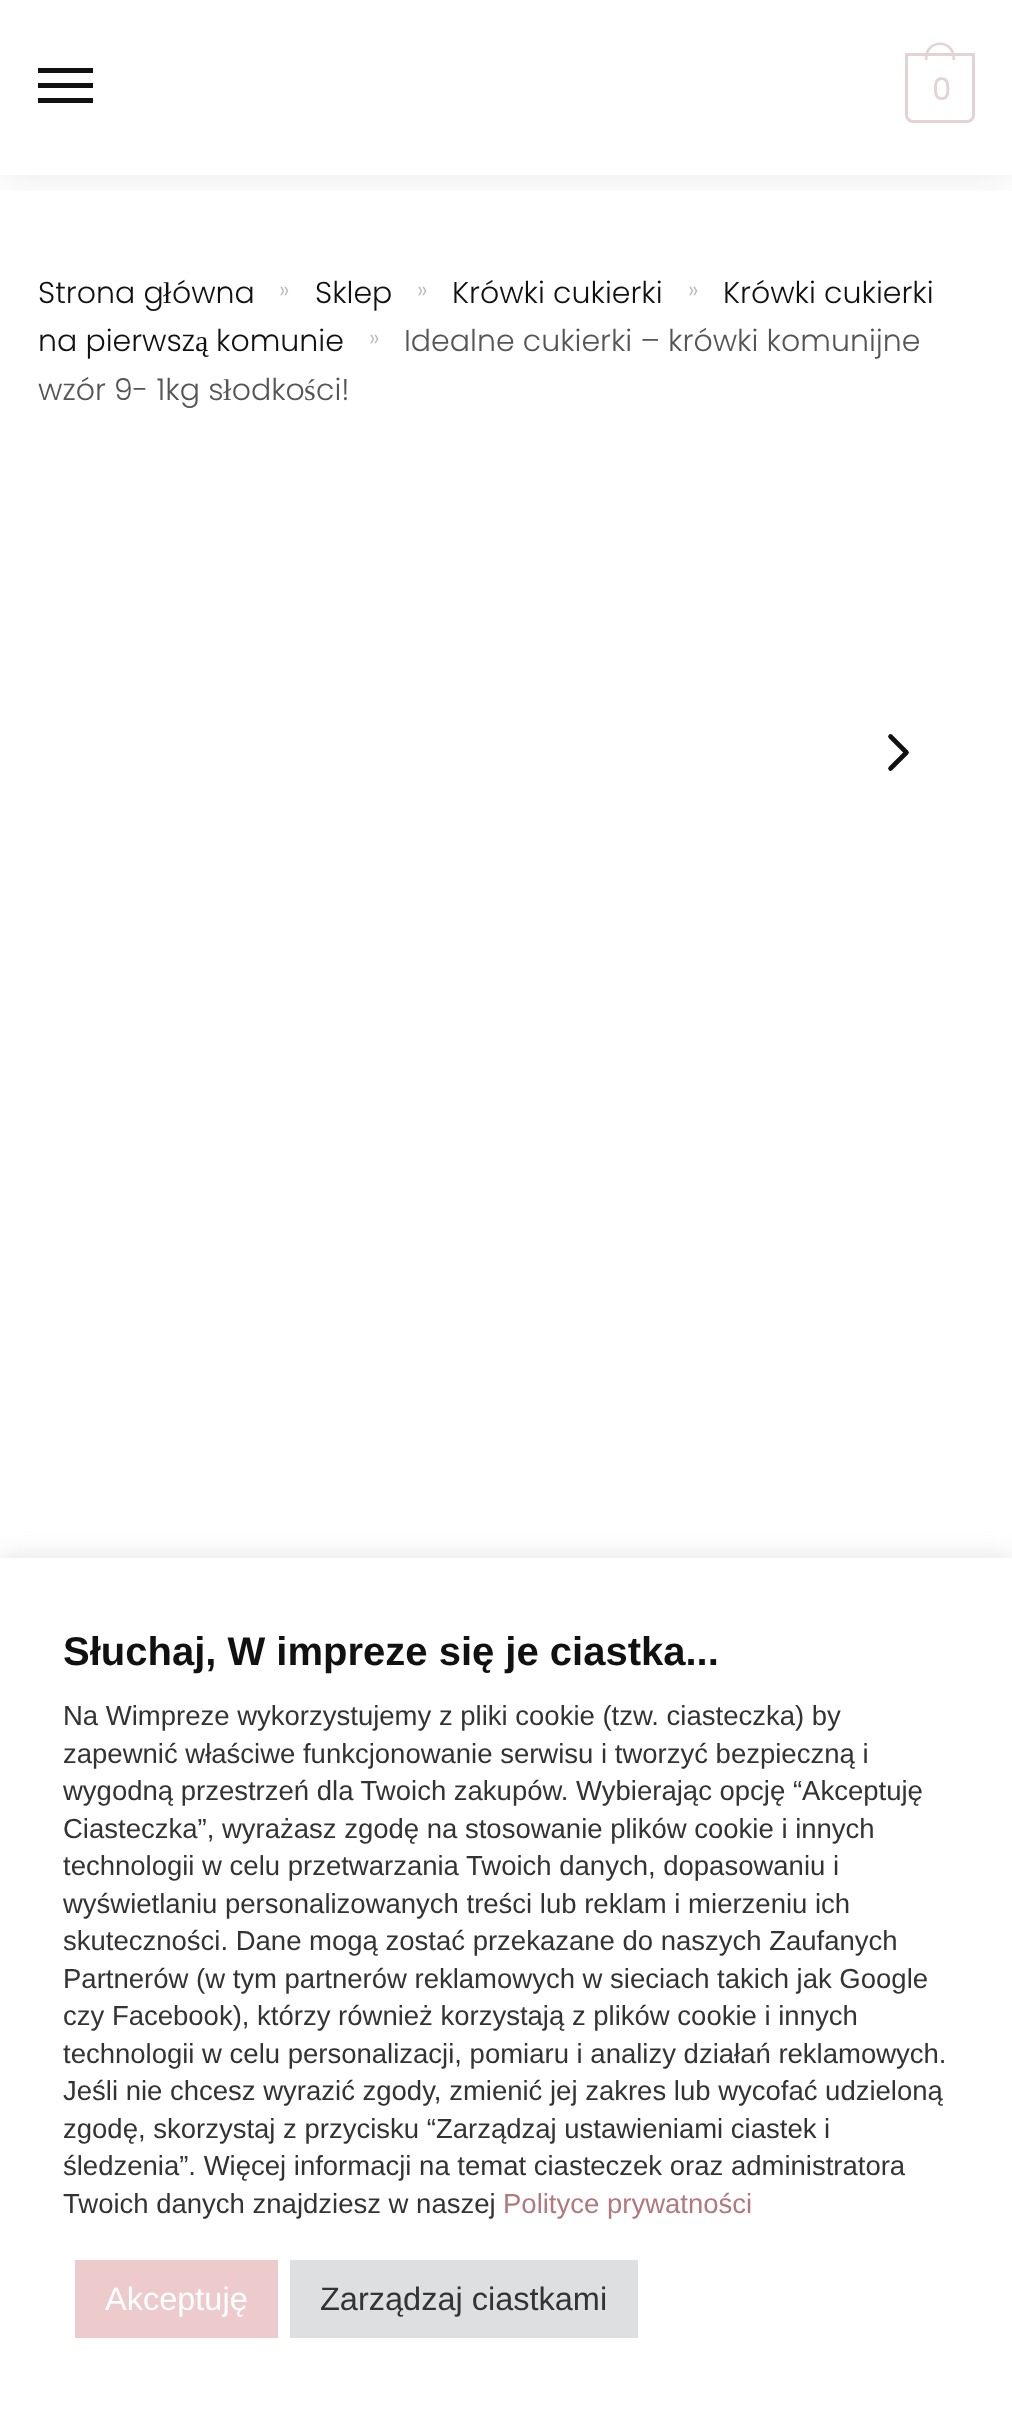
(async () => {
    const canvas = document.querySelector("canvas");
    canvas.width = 1012;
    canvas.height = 2411;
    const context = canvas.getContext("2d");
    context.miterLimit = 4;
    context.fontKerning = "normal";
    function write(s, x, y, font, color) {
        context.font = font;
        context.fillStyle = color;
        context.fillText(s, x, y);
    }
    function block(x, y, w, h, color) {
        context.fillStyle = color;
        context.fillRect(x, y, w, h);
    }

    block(0, 0, 1012, 2411, "rgb(255, 255, 255)");
    context.save();
    context.beginPath();
    context.rect(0, 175, 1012, 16);
    context.clip();
    context.fillStyle = "rgba(0, 0, 0, 0.08)";
    context.filter = "blur(19px)";
    context.beginPath();
    context.rect(0, 3, 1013, 175);
    context.fill();
    context.filter = "none";
    context.restore();
    block(38, 68, 55, 5, "rgb(17, 17, 17)");
    block(38, 83, 55, 5, "rgb(17, 17, 17)");
    block(38, 98, 55, 5, "rgb(17, 17, 17)");
    context.beginPath();
    context.roundRect(906.5, 54.5, 67, 67, [0, 0, 6.5, 6.5]);
    context.strokeStyle = "rgb(229, 210, 212)";
    context.lineWidth = 3;
    context.stroke();
    context.fillStyle = "rgb(229, 210, 212)";
    context.beginPath();
    context.moveTo(940, 42.5);
    context.bezierCurveTo(948.5, 42.5, 955, 49, 955, 57.5);
    context.lineTo(955, 60);
    context.lineTo(925, 60);
    context.lineTo(925, 57.5);
    context.bezierCurveTo(925, 49, 931.5, 42.5, 940, 42.5);
    context.closePath();
    context.moveTo(940, 45);
    context.bezierCurveTo(947, 45, 952.5, 50.5, 952.5, 57.5);
    context.lineTo(952.5, 60);
    context.lineTo(927.5, 60);
    context.lineTo(927.5, 57.5);
    context.bezierCurveTo(927.5, 50.5, 933, 45, 940, 45);
    context.closePath();
    context.fill("evenodd");
    context.letterSpacing = "-2px";
    write("0", 932, 100, "bold 30px Poppins", "rgb(229, 210, 212)");
    context.letterSpacing = "0px";
    write("Strona g ówna", 38, 303, "300 30px Poppins", "rgb(17, 17, 17)");
    write("Sklep", 315, 303, "300 30px Poppins", "rgb(17, 17, 17)");
    write("Krówki cukierki", 452, 303, "300 30px Poppins", "rgb(17, 17, 17)");
    write("Krówki cukierki", 723, 303, "300 30px Poppins", "rgb(17, 17, 17)");
    write("ł", 163, 303, "30px Liberation Serif", "rgb(17, 17, 17)");
    write("»", 279, 298, "300 24px Poppins", "rgb(187, 187, 187)");
    write("»", 417, 298, "300 24px Poppins", "rgb(187, 187, 187)");
    write("»", 688, 298, "300 24px Poppins", "rgb(187, 187, 187)");
    write("na pierwsz", 38, 351, "300 30px Poppins", "rgb(17, 17, 17)");
    write("ą", 195, 351, "30px Liberation Serif", "rgb(17, 17, 17)");
    write("komunie", 216, 351, "300 30px Poppins", "rgb(17, 17, 17)");
    write("»", 369, 346, "300 24px Poppins", "rgb(187, 187, 187)");
    write("Idealne cukierki – krówki komunijne", 404, 351, "300 30px Poppins", "rgb(85, 85, 85)");
    write("wzór 9- 1kg s odko", 38, 400, "300 30px Poppins", "rgb(85, 85, 85)");
    write("ci!", 316, 400, "300 30px Poppins", "rgb(85, 85, 85)");
    write("ł", 223, 400, "30px Liberation Serif", "rgb(85, 85, 85)");
    write("ś", 304, 400, "30px Liberation Serif", "rgb(85, 85, 85)");
    context.beginPath();
    context.moveTo(890.5, 768.5);
    context.lineTo(906.5, 752.5);
    context.lineTo(890.5, 736.5);
    context.strokeStyle = "rgb(17, 17, 17)";
    context.lineWidth = 4.6;
    context.lineCap = "round";
    context.lineJoin = "round";
    context.stroke();
    context.fillStyle = "rgba(172, 171, 171, 0.3)";
    context.filter = "blur(12.5px)";
    context.beginPath();
    context.rect(0, 1555, 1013, 855);
    context.fill();
    context.filter = "none";
    block(0, 1558, 1012, 853, "rgb(255, 255, 255)");
    write("Słuchaj, W impreze się je ciastka...", 63, 1665, "bold 40px Liberation Sans", "rgb(17, 17, 17)");
    write("Na Wimpreze wykorzystujemy z pliki cookie (tzw. ciasteczka) by", 63, 1725, "27.5px Liberation Sans", "rgb(51, 51, 51)");
    write("zapewnić właściwe funkcjonowanie serwisu i tworzyć bezpieczną i", 63, 1763, "27.5px Liberation Sans", "rgb(51, 51, 51)");
    write("wygodną przestrzeń dla Twoich zakupów. Wybierając opcję “Akceptuję", 63, 1800, "27.5px Liberation Sans", "rgb(51, 51, 51)");
    write("Ciasteczka”, wyrażasz zgodę na stosowanie plików cookie i innych", 63, 1838, "27.5px Liberation Sans", "rgb(51, 51, 51)");
    write("technologii w celu przetwarzania Twoich danych, dopasowaniu i", 63, 1875, "27.5px Liberation Sans", "rgb(51, 51, 51)");
    write("wyświetlaniu personalizowanych treści lub reklam i mierzeniu ich", 63, 1913, "27.5px Liberation Sans", "rgb(51, 51, 51)");
    write("skuteczności. Dane mogą zostać przekazane do naszych Zaufanych", 63, 1950, "27.5px Liberation Sans", "rgb(51, 51, 51)");
    write("Partnerów (w tym partnerów reklamowych w sieciach takich jak Google", 63, 1988, "27.5px Liberation Sans", "rgb(51, 51, 51)");
    write("czy Facebook), którzy również korzystają z plików cookie i innych", 63, 2025, "27.5px Liberation Sans", "rgb(51, 51, 51)");
    write("technologii w celu personalizacji, pomiaru i analizy działań reklamowych.", 63, 2063, "27.5px Liberation Sans", "rgb(51, 51, 51)");
    write("Jeśli nie chcesz wyrazić zgody, zmienić jej zakres lub wycofać udzieloną", 63, 2100, "27.5px Liberation Sans", "rgb(51, 51, 51)");
    write("zgodę, skorzystaj z przycisku “Zarządzaj ustawieniami ciastek i", 63, 2138, "27.5px Liberation Sans", "rgb(51, 51, 51)");
    write("śledzenia”. Więcej informacji na temat ciasteczek oraz administratora", 63, 2175, "27.5px Liberation Sans", "rgb(51, 51, 51)");
    write("Twoich danych znajdziesz w naszej", 63, 2213, "27.5px Liberation Sans", "rgb(51, 51, 51)");
    write("Polityce prywatności", 503, 2213, "27.5px Liberation Sans", "rgb(177, 120, 126)");
    block(75, 2260, 203, 78, "rgb(237, 202, 204)");
    write("Akceptuję", 105, 2310, "32.5px Liberation Sans", "rgb(255, 255, 255)");
    block(290, 2260, 348, 78, "rgb(222, 223, 224)");
    write("Zarządzaj ciastkami", 320, 2310, "32.5px Liberation Sans", "rgb(51, 51, 51)");
})();
